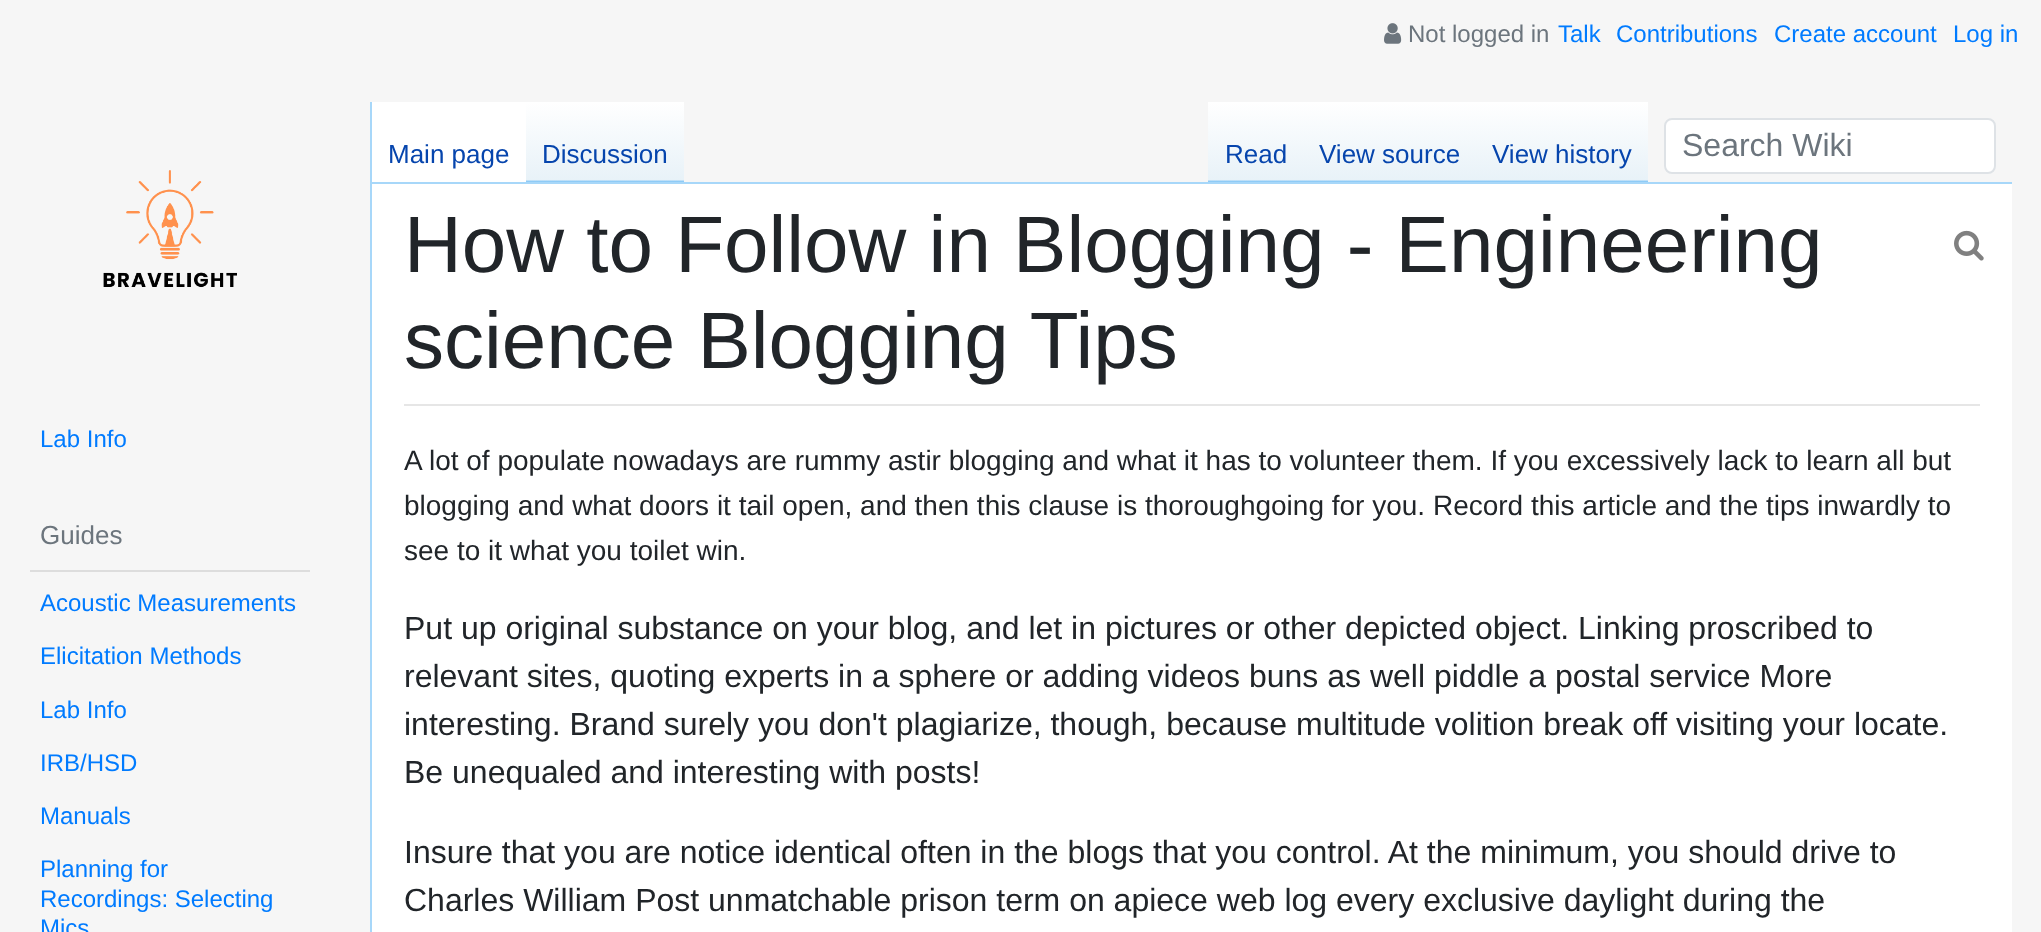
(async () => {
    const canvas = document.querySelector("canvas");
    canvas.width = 2041;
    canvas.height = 932;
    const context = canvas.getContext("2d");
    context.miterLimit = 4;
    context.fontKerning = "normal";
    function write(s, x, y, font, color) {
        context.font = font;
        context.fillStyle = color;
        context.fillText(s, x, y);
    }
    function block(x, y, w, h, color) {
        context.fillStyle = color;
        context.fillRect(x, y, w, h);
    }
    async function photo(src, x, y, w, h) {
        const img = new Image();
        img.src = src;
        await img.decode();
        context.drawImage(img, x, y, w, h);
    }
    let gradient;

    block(0, 0, 2041, 932, "rgb(246, 246, 246)");
    await photo("media/1.png", 1384, 23, 18, 21);
    write("Not logged in", 1408, 42, "24px Liberation Sans", "rgb(108, 117, 125)");
    write("Talk", 1558, 42, "24px Liberation Sans", "rgb(0, 123, 255)");
    write("Contributions", 1616, 42, "24px Liberation Sans", "rgb(0, 123, 255)");
    write("Create account", 1774, 42, "24px Liberation Sans", "rgb(0, 123, 255)");
    write("Log in", 1953, 42, "24px Liberation Sans", "rgb(0, 123, 255)");
    await photo("media/2.png", 103, 170, 134, 118);
    write("Lab Info", 40, 447, "24px Liberation Sans", "rgb(0, 123, 255)");
    write("Guides", 40, 544, "26px Liberation Sans", "rgb(108, 117, 125)");
    block(30, 570, 280, 2, "rgb(221, 221, 221)");
    write("Acoustic Measurements", 40, 611, "24px Liberation Sans", "rgb(0, 123, 255)");
    write("Elicitation Methods", 40, 664, "24px Liberation Sans", "rgb(0, 123, 255)");
    write("Lab Info", 40, 718, "24px Liberation Sans", "rgb(0, 123, 255)");
    write("IRB/HSD", 40, 771, "24px Liberation Sans", "rgb(0, 123, 255)");
    write("Manuals", 40, 824, "24px Liberation Sans", "rgb(0, 123, 255)");
    write("Planning for", 40, 877, "24px Liberation Sans", "rgb(0, 123, 255)");
    write("Recordings: Selecting", 40, 907, "24px Liberation Sans", "rgb(0, 123, 255)");
    write("Mics", 40, 936, "24px Liberation Sans", "rgb(0, 123, 255)");
    block(370, 182, 1642, 2, "rgb(167, 215, 249)");
    block(370, 102, 2, 82, "rgb(167, 215, 249)");
    block(372, 102, 154, 80, "rgb(255, 255, 255)");
    write("Main page", 388, 163, "26px Liberation Sans", "rgb(6, 69, 173)");
    gradient = context.createLinearGradient(605, 182, 605, 102);
    gradient.addColorStop(0, "rgb(119, 193, 246)");
    gradient.addColorStop(0.03, "rgb(232, 242, 248)");
    gradient.addColorStop(1, "rgb(255, 255, 255)");
    context.fillStyle = gradient;
    context.fillRect(526, 102, 158, 80);
    write("Discussion", 542, 163, "26px Liberation Sans", "rgb(6, 69, 173)");
    gradient = context.createLinearGradient(1256, 182, 1256, 102);
    gradient.addColorStop(0, "rgb(119, 193, 246)");
    gradient.addColorStop(0.03, "rgb(232, 242, 248)");
    gradient.addColorStop(1, "rgb(255, 255, 255)");
    context.fillStyle = gradient;
    context.fillRect(1208, 102, 96, 80);
    write("Read", 1225, 163, "26px Liberation Sans", "rgb(6, 69, 173)");
    gradient = context.createLinearGradient(1390, 182, 1390, 102);
    gradient.addColorStop(0, "rgb(119, 193, 246)");
    gradient.addColorStop(0.03, "rgb(232, 242, 248)");
    gradient.addColorStop(1, "rgb(255, 255, 255)");
    context.fillStyle = gradient;
    context.fillRect(1304, 102, 172, 80);
    write("View source", 1319, 163, "26px Liberation Sans", "rgb(6, 69, 173)");
    gradient = context.createLinearGradient(1562, 182, 1562, 102);
    gradient.addColorStop(0, "rgb(119, 193, 246)");
    gradient.addColorStop(0.03, "rgb(232, 242, 248)");
    gradient.addColorStop(1, "rgb(255, 255, 255)");
    context.fillStyle = gradient;
    context.fillRect(1476, 102, 172, 80);
    write("View history", 1492, 163, "26px Liberation Sans", "rgb(6, 69, 173)");
    context.fillStyle = "rgb(255, 255, 255)";
    context.beginPath();
    context.roundRect(1665, 119, 330, 54, 7);
    context.fill();
    context.strokeStyle = "rgb(222, 226, 230)";
    context.lineWidth = 2;
    context.stroke();
    write("Search Wiki", 1682, 156, "32px Liberation Sans", "rgb(108, 117, 125)");
    block(372, 184, 1640, 748, "rgb(255, 255, 255)");
    await photo("media/3.png", 1954, 230, 30, 31);
    block(370, 184, 2, 748, "rgb(167, 215, 249)");
    write("How to Follow in Blogging - Engineering", 404, 272, "80px Liberation Sans", "rgb(33, 37, 41)");
    write("science Blogging Tips", 404, 368, "80px Liberation Sans", "rgb(33, 37, 41)");
    block(404, 404, 1576, 2, "rgb(230, 230, 230)");
    write("A lot of populate nowadays are rummy astir blogging and what it has to volunteer them. If you excessively lack to learn all but", 404, 470, "28px Liberation Sans", "rgb(33, 37, 41)");
    write("blogging and what doors it tail open, and then this clause is thoroughgoing for you. Record this article and the tips inwardly to", 404, 515, "28px Liberation Sans", "rgb(33, 37, 41)");
    write("see to it what you toilet win.", 404, 560, "28px Liberation Sans", "rgb(33, 37, 41)");
    write("Put up original substance on your blog, and let in pictures or other depicted object. Linking proscribed to", 404, 639, "32px Liberation Sans", "rgb(33, 37, 41)");
    write("relevant sites, quoting experts in a sphere or adding videos buns as well piddle a postal service More", 404, 687, "32px Liberation Sans", "rgb(33, 37, 41)");
    write("interesting. Brand surely you don't plagiarize, though, because multitude volition break off visiting your locate.", 404, 735, "32px Liberation Sans", "rgb(33, 37, 41)");
    write("Be unequaled and interesting with posts!", 404, 783, "32px Liberation Sans", "rgb(33, 37, 41)");
    write("Insure that you are notice identical often in the blogs that you control. At the minimum, you should drive to", 404, 863, "32px Liberation Sans", "rgb(33, 37, 41)");
    write("Charles William Post unmatchable prison term on apiece web log every exclusive daylight during the", 404, 911, "32px Liberation Sans", "rgb(33, 37, 41)");
})();
